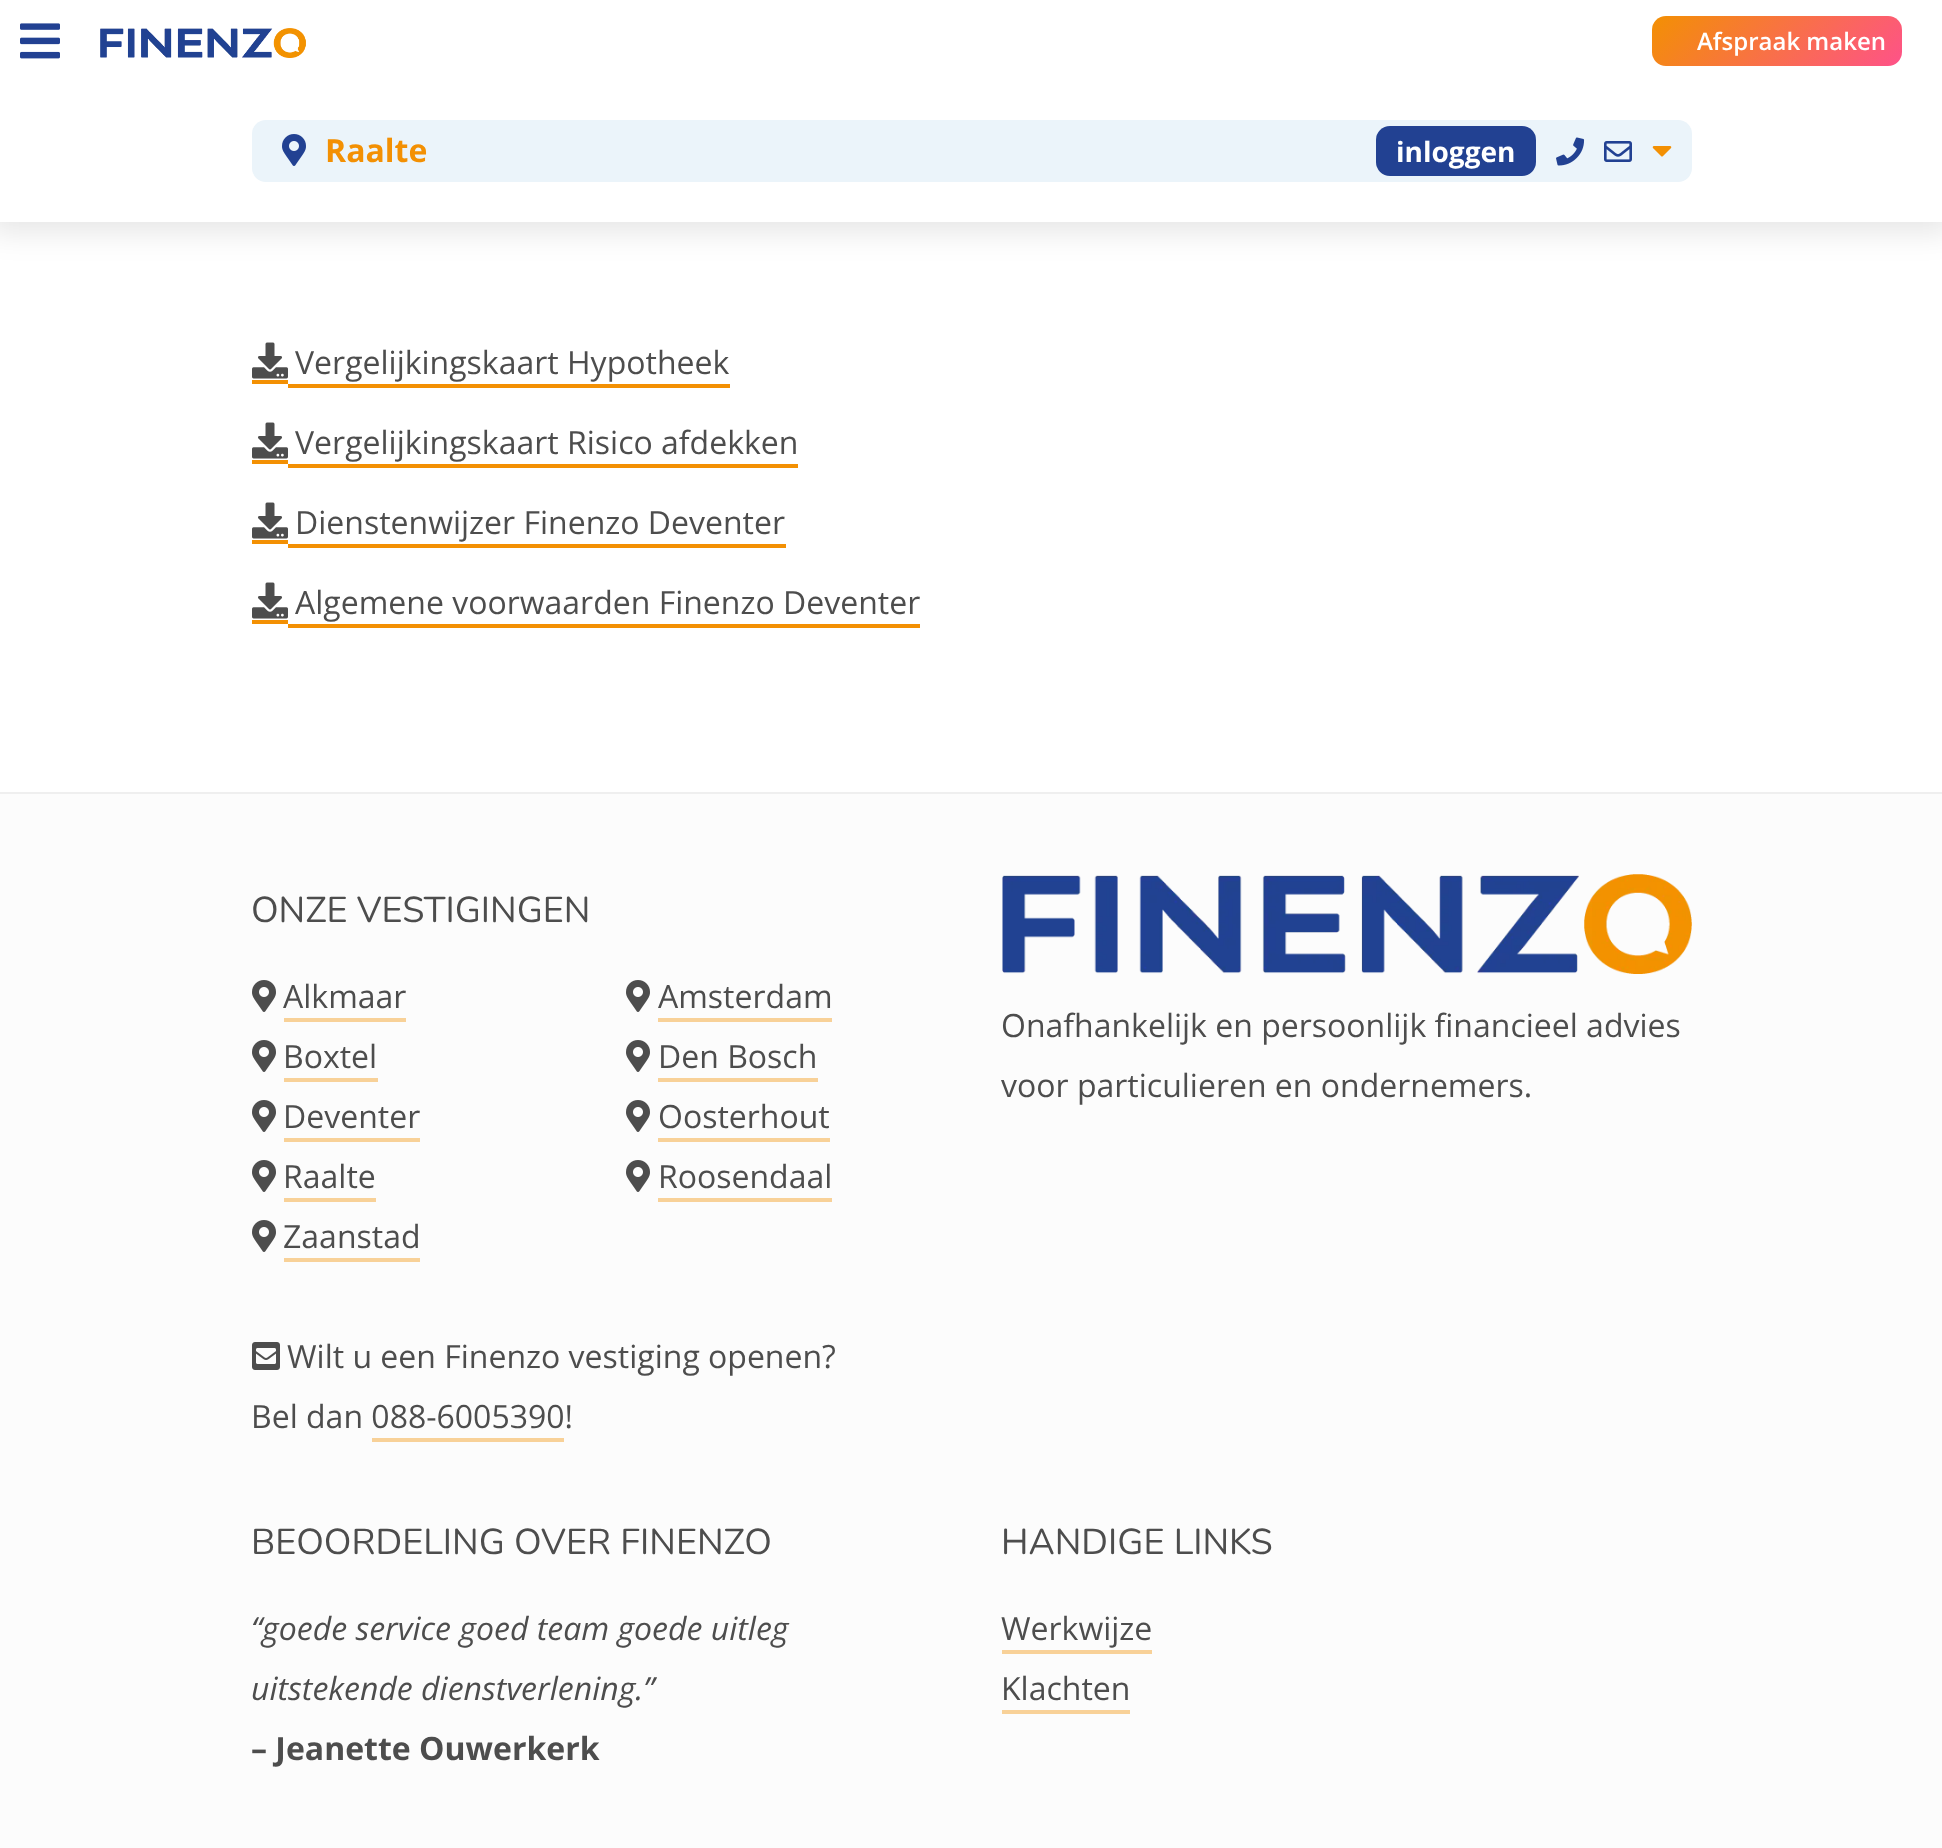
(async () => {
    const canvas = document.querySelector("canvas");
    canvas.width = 1942;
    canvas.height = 1848;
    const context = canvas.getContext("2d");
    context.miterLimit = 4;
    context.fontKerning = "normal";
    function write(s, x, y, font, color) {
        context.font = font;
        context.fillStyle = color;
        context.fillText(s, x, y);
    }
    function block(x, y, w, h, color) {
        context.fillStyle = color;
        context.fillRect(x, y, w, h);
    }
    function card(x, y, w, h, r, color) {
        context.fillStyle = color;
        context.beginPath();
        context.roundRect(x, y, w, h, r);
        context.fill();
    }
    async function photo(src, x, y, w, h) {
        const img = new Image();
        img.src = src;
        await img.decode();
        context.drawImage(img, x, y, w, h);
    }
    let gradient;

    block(0, 0, 1942, 1848, "rgb(255, 255, 255)");
    context.fillStyle = "rgba(0, 0, 0, 0.1)";
    context.filter = "blur(15px)";
    context.beginPath();
    context.rect(-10, -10, 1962, 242);
    context.fill();
    context.filter = "none";
    block(0, 0, 1942, 222, "rgb(255, 255, 255)");
    await photo("media/1.png", 20, 23, 40, 36);
    await photo("media/2.png", 100, 28, 206, 30);
    gradient = context.createLinearGradient(1702, -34, 1852, 116);
    gradient.addColorStop(0, "rgb(243, 144, 3)");
    gradient.addColorStop(1, "rgb(254, 82, 137)");
    context.fillStyle = gradient;
    context.beginPath();
    context.roundRect(1652, 16, 250, 50, 14);
    context.fill();
    write("Afspraak maken", 1697, 50, "600 24px Open Sans", "rgb(255, 255, 255)");
    card(252, 120, 1440, 62, 14, "rgb(235, 244, 250)");
    await photo("media/3.png", 282, 134, 24, 32);
    write("Raalte", 325, 162, "bold 32px Open Sans", "rgb(243, 144, 3)");
    card(1376, 126, 160, 50, 14, "rgb(34, 65, 146)");
    write("inloggen", 1396, 162, "bold 28px Open Sans", "rgb(255, 255, 255)");
    await photo("media/4.png", 1556, 137, 29, 29);
    await photo("media/5.png", 1604, 141, 28, 21);
    await photo("media/6.png", 1652, 146, 20, 11);
    block(252, 380, 36, 4, "rgb(243, 144, 3)");
    block(288, 384, 442, 4, "rgb(243, 144, 3)");
    await photo("media/7.png", 252, 342, 36, 37);
    write("Vergelijkingskaart Hypotheek", 295, 374, "32px Open Sans", "rgb(77, 77, 77)");
    block(252, 460, 36, 4, "rgb(243, 144, 3)");
    block(288, 464, 510, 4, "rgb(243, 144, 3)");
    await photo("media/7.png", 252, 422, 36, 37);
    write("Vergelijkingskaart Risico afdekken", 295, 454, "32px Open Sans", "rgb(77, 77, 77)");
    block(252, 540, 36, 4, "rgb(243, 144, 3)");
    block(288, 544, 498, 4, "rgb(243, 144, 3)");
    await photo("media/7.png", 252, 502, 36, 37);
    write("Dienstenwijzer Finenzo Deventer", 295, 534, "32px Open Sans", "rgb(77, 77, 77)");
    block(252, 620, 36, 4, "rgb(243, 144, 3)");
    block(288, 624, 632, 4, "rgb(243, 144, 3)");
    await photo("media/7.png", 252, 582, 36, 37);
    write("Algemene voorwaarden Finenzo Deventer", 295, 614, "32px Open Sans", "rgb(77, 77, 77)");
    block(0, 794, 1942, 1054, "rgb(252, 252, 252)");
    block(0, 792, 1942, 2, "rgb(239, 239, 239)");
    write("ONZE VESTIGINGEN", 251, 922, "36px Nunito", "rgb(77, 77, 77)");
    await photo("media/8.png", 252, 980, 24, 32);
    write("Alkmaar", 283, 1008, "32px Open Sans", "rgb(77, 77, 77)");
    block(284, 1018, 122, 4, "rgb(248, 209, 152)");
    await photo("media/8.png", 626, 980, 24, 32);
    write("Amsterdam", 658, 1008, "32px Open Sans", "rgb(77, 77, 77)");
    block(658, 1018, 174, 4, "rgb(248, 209, 152)");
    await photo("media/8.png", 252, 1040, 24, 32);
    write("Boxtel", 283, 1068, "32px Open Sans", "rgb(77, 77, 77)");
    block(284, 1078, 94, 4, "rgb(248, 209, 152)");
    await photo("media/8.png", 626, 1040, 24, 32);
    write("Den Bosch", 658, 1068, "32px Open Sans", "rgb(77, 77, 77)");
    block(658, 1078, 160, 4, "rgb(248, 209, 152)");
    await photo("media/8.png", 252, 1100, 24, 32);
    write("Deventer", 283, 1128, "32px Open Sans", "rgb(77, 77, 77)");
    block(284, 1138, 136, 4, "rgb(248, 209, 152)");
    await photo("media/8.png", 626, 1100, 24, 32);
    write("Oosterhout", 658, 1128, "32px Open Sans", "rgb(77, 77, 77)");
    block(658, 1138, 172, 4, "rgb(248, 209, 152)");
    await photo("media/8.png", 252, 1160, 24, 32);
    write("Raalte", 283, 1188, "32px Open Sans", "rgb(77, 77, 77)");
    block(284, 1198, 92, 4, "rgb(248, 209, 152)");
    await photo("media/8.png", 626, 1160, 24, 32);
    write("Roosendaal", 658, 1188, "32px Open Sans", "rgb(77, 77, 77)");
    block(658, 1198, 174, 4, "rgb(248, 209, 152)");
    await photo("media/8.png", 252, 1220, 24, 32);
    write("Zaanstad", 283, 1248, "32px Open Sans", "rgb(77, 77, 77)");
    block(284, 1258, 136, 4, "rgb(248, 209, 152)");
    await photo("media/9.png", 252, 1342, 28, 28);
    write("Wilt u een Finenzo vestiging openen?", 287, 1368, "32px Open Sans", "rgb(77, 77, 77)");
    write("Bel dan 088-6005390!", 251, 1428, "32px Open Sans", "rgb(77, 77, 77)");
    block(372, 1438, 192, 4, "rgb(248, 209, 152)");
    await photo("media/10.png", 1002, 874, 690, 100);
    write("Onafhankelijk en persoonlijk financieel advies", 1001, 1037, "32px Open Sans", "rgb(77, 77, 77)");
    write("voor particulieren en ondernemers.", 1001, 1097, "32px Open Sans", "rgb(77, 77, 77)");
    write("BEOORDELING OVER FINENZO", 251, 1554, "36px Nunito", "rgb(77, 77, 77)");
    write("“goede service goed team goede uitleg", 251, 1640, "italic 32px Open Sans", "rgb(77, 77, 77)");
    write("uitstekende dienstverlening.”", 251, 1700, "italic 32px Open Sans", "rgb(77, 77, 77)");
    write("– Jeanette Ouwerkerk", 251, 1760, "bold 32px Open Sans", "rgb(77, 77, 77)");
    write("HANDIGE LINKS", 1001, 1554, "36px Nunito", "rgb(77, 77, 77)");
    write("Werkwijze", 1001, 1640, "32px Open Sans", "rgb(77, 77, 77)");
    block(1002, 1650, 150, 4, "rgb(248, 209, 152)");
    write("Klachten", 1001, 1700, "32px Open Sans", "rgb(77, 77, 77)");
    block(1002, 1710, 128, 4, "rgb(248, 209, 152)");
})();
